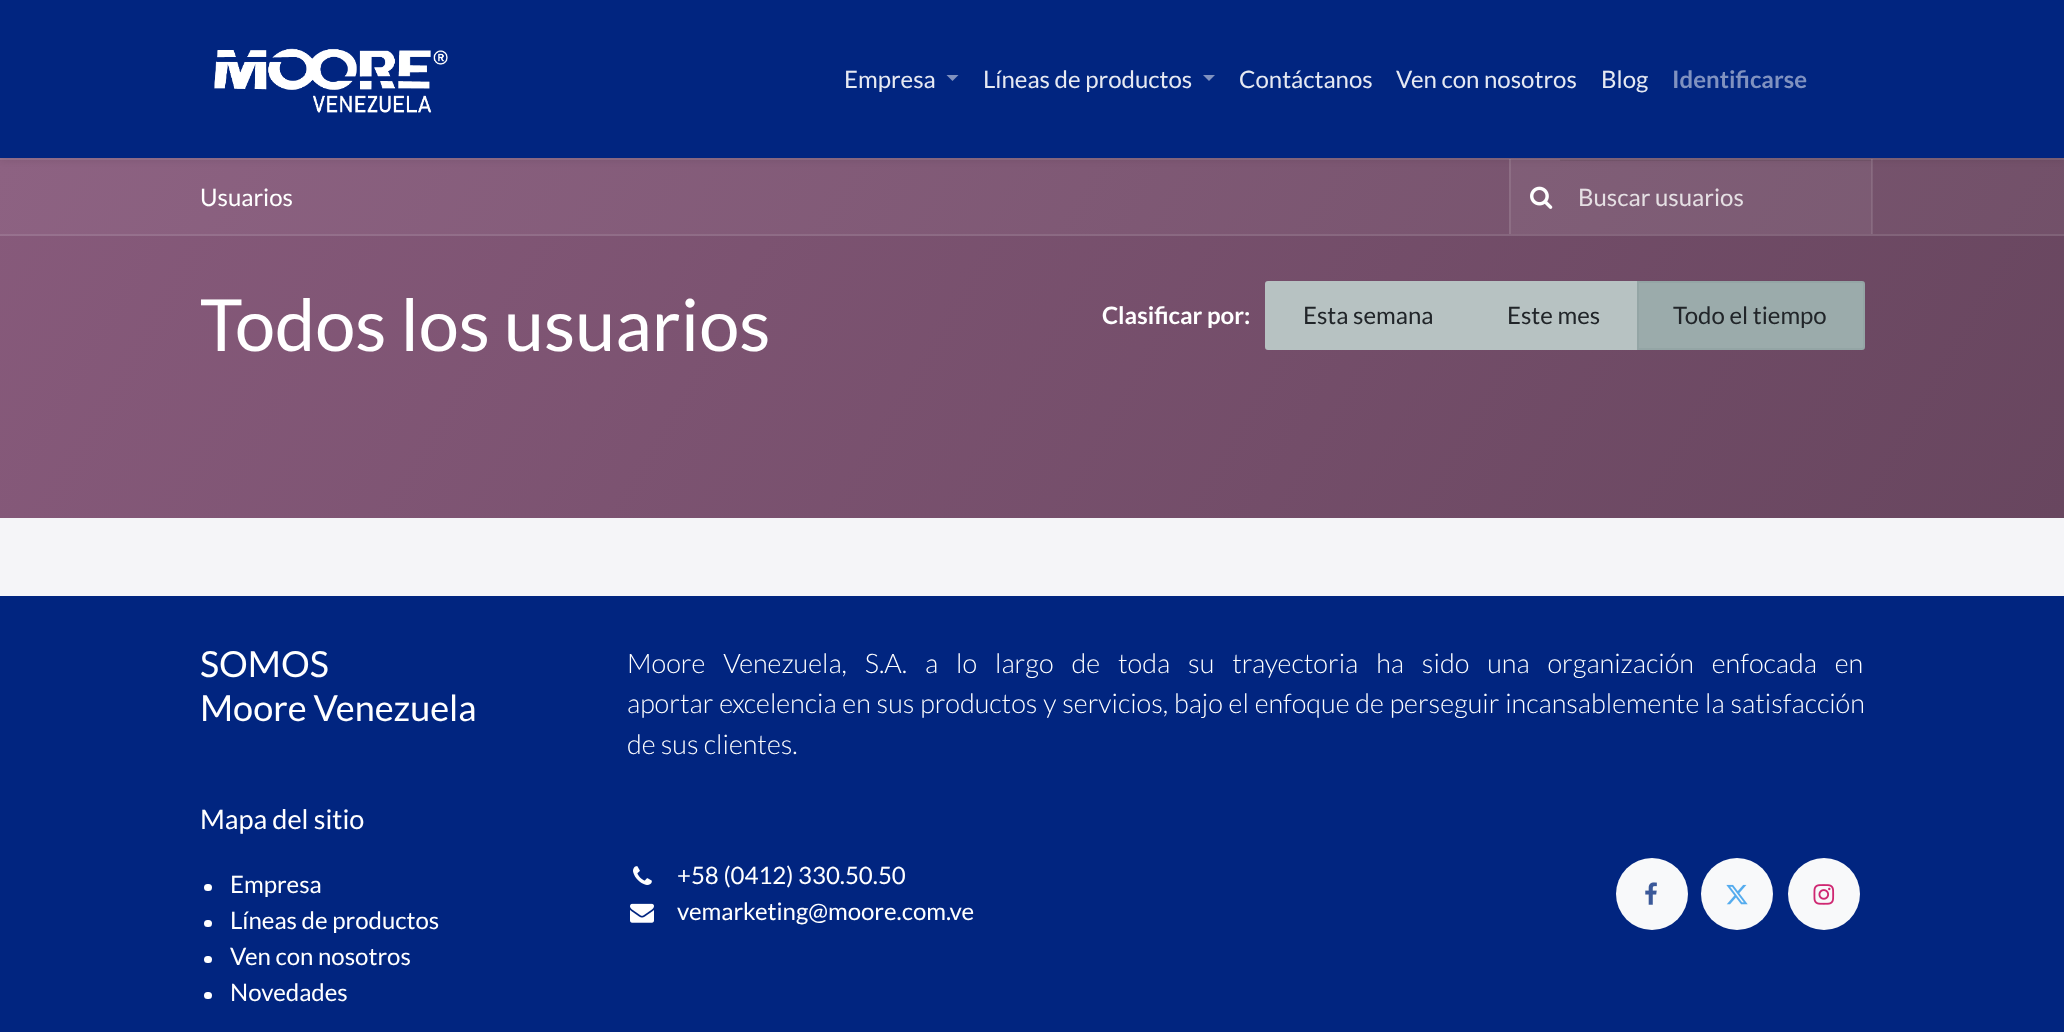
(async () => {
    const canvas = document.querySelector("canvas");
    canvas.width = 2064;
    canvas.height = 1032;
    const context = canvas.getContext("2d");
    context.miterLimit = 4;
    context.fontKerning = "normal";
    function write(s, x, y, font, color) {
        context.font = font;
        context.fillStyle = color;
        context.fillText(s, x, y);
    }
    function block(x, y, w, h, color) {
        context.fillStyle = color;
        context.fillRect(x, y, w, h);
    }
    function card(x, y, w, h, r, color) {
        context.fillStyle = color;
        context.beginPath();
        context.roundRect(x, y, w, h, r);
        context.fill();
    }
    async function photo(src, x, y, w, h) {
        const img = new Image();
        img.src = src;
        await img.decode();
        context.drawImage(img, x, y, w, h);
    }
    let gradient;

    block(0, 0, 2064, 1032, "rgb(245, 245, 248)");
    gradient = context.createLinearGradient(180, -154, 1884, 829);
    gradient.addColorStop(0, "rgb(141, 98, 130)");
    gradient.addColorStop(1, "rgb(112, 79, 103)");
    context.fillStyle = gradient;
    context.fillRect(0, 160, 2064, 74);
    gradient = context.createLinearGradient(180, -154, 1884, 829);
    gradient.addColorStop(0, "rgb(152, 114, 143)");
    gradient.addColorStop(1, "rgb(126, 97, 118)");
    context.fillStyle = gradient;
    context.fillRect(1872, 159, 1, 75);
    gradient = context.createLinearGradient(180, -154, 1884, 829);
    gradient.addColorStop(0, "rgb(147, 106, 136)");
    gradient.addColorStop(1, "rgb(119, 88, 111)");
    context.fillStyle = gradient;
    context.fillRect(1511, 160, 360, 74);
    gradient = context.createLinearGradient(180, -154, 1884, 829);
    gradient.addColorStop(0, "rgb(137, 99, 126)");
    gradient.addColorStop(1, "rgb(111, 82, 103)");
    context.fillStyle = gradient;
    context.fillRect(1560, 160, 311, 1);
    gradient = context.createLinearGradient(180, -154, 1884, 829);
    gradient.addColorStop(0, "rgb(158, 121, 148)");
    gradient.addColorStop(1, "rgb(133, 105, 125)");
    context.fillStyle = gradient;
    context.fillRect(1509, 159, 2, 75);
    context.fillRect(1871, 159, 1, 75);
    gradient = context.createLinearGradient(180, -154, 1884, 829);
    gradient.addColorStop(0, "rgb(152, 114, 143)");
    gradient.addColorStop(1, "rgb(126, 97, 118)");
    context.fillStyle = gradient;
    context.fillRect(0, 158, 2064, 2);
    gradient = context.createLinearGradient(180, -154, 1884, 829);
    gradient.addColorStop(0, "rgb(162, 128, 154)");
    gradient.addColorStop(1, "rgb(139, 113, 132)");
    context.fillStyle = gradient;
    context.fillRect(1871, 159, 2, 1);
    gradient = context.createLinearGradient(180, -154, 1884, 829);
    gradient.addColorStop(0, "rgb(157, 121, 149)");
    gradient.addColorStop(1, "rgb(132, 105, 125)");
    context.fillStyle = gradient;
    context.fillRect(1509, 159, 51, 1);
    gradient = context.createLinearGradient(180, -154, 1884, 829);
    gradient.addColorStop(0, "rgb(146, 113, 139)");
    gradient.addColorStop(1, "rgb(123, 98, 116)");
    context.fillStyle = gradient;
    context.fillRect(1560, 159, 311, 1);
    gradient = context.createLinearGradient(180, -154, 1884, 829);
    gradient.addColorStop(0, "rgb(167, 134, 160)");
    gradient.addColorStop(1, "rgb(144, 120, 138)");
    context.fillStyle = gradient;
    context.fillRect(1509, 159, 2, 1);
    context.fillRect(1871, 159, 1, 1);
    context.fillStyle = "rgba(0, 0, 0, 0.07)";
    context.filter = "blur(3px)";
    context.beginPath();
    context.rect(0, 3, 2064, 158);
    context.fill();
    context.filter = "none";
    block(0, 0, 2064, 158, "rgb(1, 37, 128)");
    await photo("media/1.png", 214, 48, 234, 65);
    write("Empresa", 844, 88, "24px Lato", "rgb(230, 233, 242)");
    context.fillStyle = "rgb(128, 146, 192)";
    context.beginPath();
    context.moveTo(946.5, 75);
    context.lineTo(958.5, 75);
    context.lineTo(952.5, 81);
    context.closePath();
    context.fill();
    write("Líneas de productos", 983, 88, "24px Lato", "rgb(230, 233, 242)");
    context.fillStyle = "rgb(128, 146, 192)";
    context.beginPath();
    context.moveTo(1203, 75);
    context.lineTo(1215, 75);
    context.lineTo(1209, 81);
    context.closePath();
    context.fill();
    write("Contáctanos", 1239, 88, "24px Lato", "rgb(230, 233, 242)");
    write("Ven con nosotros", 1396, 88, "24px Lato", "rgb(230, 233, 242)");
    write("Blog", 1601, 88, "24px Lato", "rgb(230, 233, 242)");
    write("Identificarse", 1672, 88, "bold 24px Lato", "rgb(128, 146, 192)");
    gradient = context.createLinearGradient(180, -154, 1884, 829);
    gradient.addColorStop(0, "rgb(135, 90, 123)");
    gradient.addColorStop(1, "rgb(104, 70, 95)");
    context.fillStyle = gradient;
    context.fillRect(0, 236, 2064, 282);
    gradient = context.createLinearGradient(180, -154, 1884, 829);
    gradient.addColorStop(0, "rgb(152, 114, 143)");
    gradient.addColorStop(1, "rgb(126, 97, 118)");
    context.fillStyle = gradient;
    context.fillRect(0, 234, 2064, 2);
    write("Usuarios", 200, 206, "24px Lato", "rgb(255, 255, 255)");
    await photo("media/2.png", 1530, 186, 23, 23);
    write("Buscar usuarios", 1578, 206, "24px Lato", "rgb(229, 223, 227)");
    write("Todos los usuarios", 200, 351, "72px Lato", "rgb(255, 255, 255)");
    write("Clasificar por:", 1102, 324, "bold 24px Lato", "rgb(255, 255, 255)");
    context.fillStyle = "rgb(183, 194, 194)";
    context.beginPath();
    context.roundRect(1266, 282, 203, 67, [2, 0, 0, 2]);
    context.fill();
    context.strokeStyle = "rgb(183, 194, 194)";
    context.lineWidth = 2;
    context.stroke();
    write("Esta semana", 1303, 324, "24px Lato", "rgb(33, 37, 41)");
    block(1470, 281, 167, 69, "rgb(183, 194, 194)");
    write("Este mes", 1507, 324, "24px Lato", "rgb(33, 37, 41)");
    context.fillStyle = "rgb(155, 171, 171)";
    context.beginPath();
    context.roundRect(1638, 282, 226, 67, [0, 2, 2, 0]);
    context.fill();
    context.strokeStyle = "rgb(148, 165, 165)";
    context.stroke();
    write("Todo el tiempo", 1673, 324, "24px Lato", "rgb(33, 37, 41)");
    block(0, 596, 2064, 436, "rgb(1, 37, 128)");
    write("SOMOS", 200, 677, "36px Lato", "rgb(255, 255, 255)");
    write("Moore Venezuela", 200, 721, "36px Lato", "rgb(255, 255, 255)");
    context.wordSpacing = "12.75px";
    write("Moore Venezuela, S.A. a lo largo de toda su trayectoria ha sido una organización enfocada en", 627, 673, "300 27px Lato", "rgb(255, 255, 255)");
    context.wordSpacing = "0.6px";
    write("aportar excelencia en sus productos y servicios, bajo el enfoque de perseguir incansablemente la satisfacción", 627, 713, "300 27px Lato", "rgb(255, 255, 255)");
    context.wordSpacing = "0px";
    write("de sus clientes.", 627, 754, "300 27px Lato", "rgb(255, 255, 255)");
    write("Mapa del sitio", 200, 829, "27px Lato", "rgb(255, 255, 255)");
    card(204, 884, 8, 7, 3.5, "rgb(255, 255, 255)");
    write("Empresa", 230, 893, "24px Lato", "rgb(255, 255, 255)");
    card(204, 920, 8, 7, 3.5, "rgb(255, 255, 255)");
    write("Líneas de productos", 230, 929, "24px Lato", "rgb(255, 255, 255)");
    card(204, 956, 8, 7, 3.5, "rgb(255, 255, 255)");
    write("Ven con nosotros", 230, 965, "24px Lato", "rgb(255, 255, 255)");
    card(204, 992, 8, 7, 3.5, "rgb(255, 255, 255)");
    write("Novedades", 230, 1001, "24px Lato", "rgb(255, 255, 255)");
    await photo("media/3.png", 633, 866, 19, 19);
    write("+58 (0412) 330.50.50", 677, 884, "24px Lato", "rgb(255, 255, 255)");
    await photo("media/4.png", 630, 903, 24, 20);
    write("vemarketing@moore.com.ve", 677, 920, "24px Lato", "rgb(255, 255, 255)");
    context.fillStyle = "rgb(248, 249, 250)";
    context.beginPath();
    context.arc(1652, 894, 36, 0, Math.PI * 2);
    context.fill();
    await photo("media/5.png", 1645, 882, 12, 23);
    context.beginPath();
    context.arc(1737, 894, 36, 0, Math.PI * 2);
    context.fill();
    await photo("media/6.png", 1726, 884, 22, 21);
    context.beginPath();
    context.arc(1824, 894, 36, 0, Math.PI * 2);
    context.fill();
    await photo("media/7.png", 1813, 884, 22, 21);
})();
